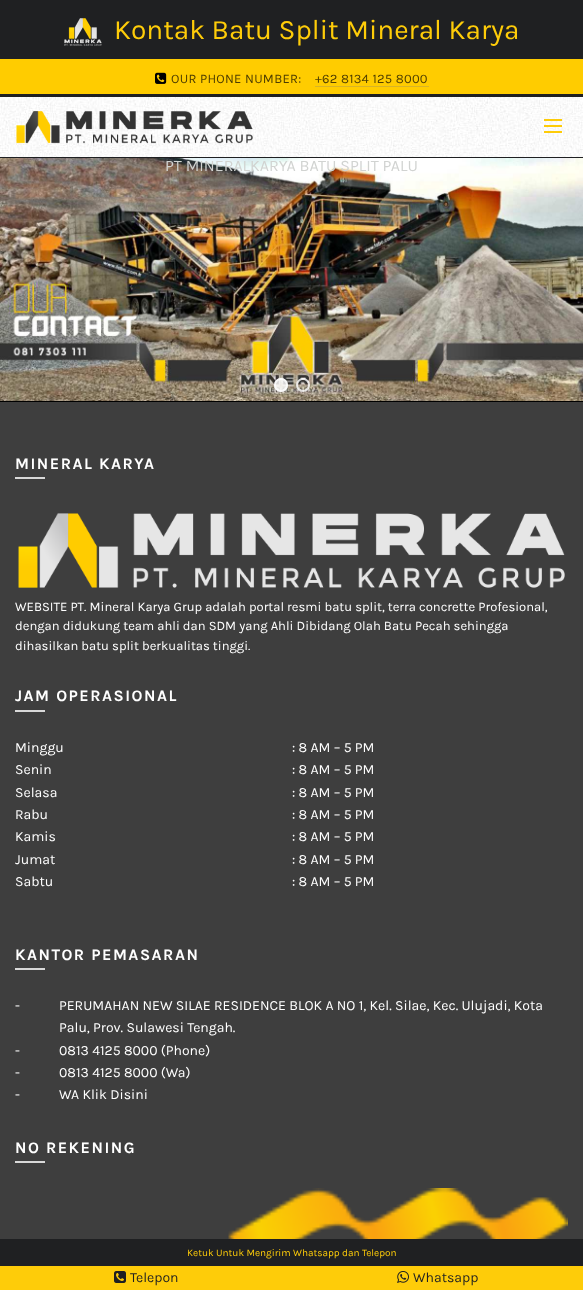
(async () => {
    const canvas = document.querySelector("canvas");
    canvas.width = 583;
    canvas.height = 1290;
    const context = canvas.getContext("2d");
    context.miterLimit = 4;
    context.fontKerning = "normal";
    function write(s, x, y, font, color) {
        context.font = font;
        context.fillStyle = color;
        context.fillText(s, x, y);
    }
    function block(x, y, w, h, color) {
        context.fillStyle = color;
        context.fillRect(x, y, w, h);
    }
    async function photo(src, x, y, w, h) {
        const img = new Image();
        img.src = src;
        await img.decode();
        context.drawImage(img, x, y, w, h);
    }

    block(0, 0, 583, 1290, "rgb(31, 32, 34)");
    await photo("media/1.png", 64, 18, 38, 28);
    write("Kontak Batu Split Mineral Karya", 114, 39, "28px Karla", "rgb(254, 204, 9)");
    block(0, 59, 583, 35, "rgb(255, 204, 0)");
    await photo("media/2.png", 155, 72, 12, 12);
    context.letterSpacing = "0.25px";
    write("OUR PHONE NUMBER:", 171, 83, "13px Karla", "rgb(77, 61, 0)");
    write("+62 8134 125 8000", 315, 83, "13px Karla", "rgb(77, 61, 0)");
    block(315, 86, 114, 1, "rgb(216, 180, 38)");
    await photo("media/3.png", 0, 97, 583, 60);
    await photo("media/4.png", 16, 111, 237, 33);
    block(544, 125, 18, 2, "rgb(254, 204, 9)");
    block(544, 119, 18, 2, "rgb(254, 204, 9)");
    block(544, 131, 18, 2, "rgb(254, 204, 9)");
    await photo("media/5.png", 0, 158, 583, 243);
    context.letterSpacing = "0px";
    write("PT MINERALKARYA BATU SPLIT PALU", 165, 171, "16px Karla", "rgb(209, 211, 209)");
    context.fillStyle = "rgba(255, 255, 255, 0.8)";
    context.beginPath();
    context.arc(281, 385, 7, 0, Math.PI * 2);
    context.fill();
    context.beginPath();
    context.arc(281, 385, 6, 0, Math.PI * 2);
    context.strokeStyle = "rgba(255, 255, 255, 0.8)";
    context.lineWidth = 2;
    context.stroke();
    context.beginPath();
    context.arc(303, 385, 6, 0, Math.PI * 2);
    context.stroke();
    block(0, 402, 583, 837, "rgb(62, 62, 62)");
    block(0, 401, 583, 1, "rgb(0, 0, 0)");
    context.letterSpacing = "1.5px";
    write("MINERAL KARYA", 15, 469, "bold 16px Karla", "rgb(255, 255, 255)");
    block(15, 477, 30, 2, "rgb(216, 216, 216)");
    await photo("media/6.png", 18, 513, 547, 75);
    context.letterSpacing = "0px";
    write("WEBSITE PT. Mineral Karya Grup adalah portal resmi batu split, terra concrette Profesional,", 15, 611, "13px Karla", "rgb(255, 255, 255)");
    write("dengan didukung team ahli dan SDM yang Ahli Dibidang Olah Batu Pecah sehingga", 15, 630, "13px Karla", "rgb(255, 255, 255)");
    write("dihasilkan batu split berkualitas tinggi.", 15, 650, "13px Karla", "rgb(255, 255, 255)");
    context.letterSpacing = "1.5px";
    write("JAM OPERASIONAL", 15, 701, "bold 16px Karla", "rgb(255, 255, 255)");
    block(15, 710, 30, 2, "rgb(216, 216, 216)");
    context.letterSpacing = "0px";
    write("Minggu", 15, 752, "14px Karla", "rgb(255, 255, 255)");
    write(": 8 AM – 5 PM", 292, 752, "14px Karla", "rgb(255, 255, 255)");
    write("Senin", 15, 774, "14px Karla", "rgb(255, 255, 255)");
    write(": 8 AM – 5 PM", 292, 774, "14px Karla", "rgb(255, 255, 255)");
    write("Selasa", 15, 797, "14px Karla", "rgb(255, 255, 255)");
    write(": 8 AM – 5 PM", 292, 797, "14px Karla", "rgb(255, 255, 255)");
    write("Rabu", 15, 819, "14px Karla", "rgb(255, 255, 255)");
    write(": 8 AM – 5 PM", 292, 819, "14px Karla", "rgb(255, 255, 255)");
    write("Kamis", 15, 841, "14px Karla", "rgb(255, 255, 255)");
    write(": 8 AM – 5 PM", 292, 841, "14px Karla", "rgb(255, 255, 255)");
    write("Jumat", 15, 864, "14px Karla", "rgb(255, 255, 255)");
    write(": 8 AM – 5 PM", 292, 864, "14px Karla", "rgb(255, 255, 255)");
    write("Sabtu", 15, 886, "14px Karla", "rgb(255, 255, 255)");
    write(": 8 AM – 5 PM", 292, 886, "14px Karla", "rgb(255, 255, 255)");
    context.letterSpacing = "1.5px";
    write("KANTOR PEMASARAN", 15, 960, "bold 16px Karla", "rgb(255, 255, 255)");
    block(15, 968, 30, 2, "rgb(216, 216, 216)");
    context.letterSpacing = "0px";
    write("-", 15, 1010, "14px Karla", "rgb(255, 255, 255)");
    write("PERUMAHAN NEW SILAE RESIDENCE BLOK A NO 1, Kel. Silae, Kec. Ulujadi, Kota", 59, 1010, "14px Karla", "rgb(255, 255, 255)");
    write("Palu, Prov. Sulawesi Tengah.", 59, 1032, "14px Karla", "rgb(255, 255, 255)");
    write("-", 15, 1055, "14px Karla", "rgb(255, 255, 255)");
    write("0813 4125 8000 (Phone)", 59, 1055, "14px Karla", "rgb(255, 255, 255)");
    write("-", 15, 1077, "14px Karla", "rgb(255, 255, 255)");
    write("0813 4125 8000 (Wa)", 59, 1077, "14px Karla", "rgb(255, 255, 255)");
    write("-", 15, 1099, "14px Karla", "rgb(255, 255, 255)");
    write("WA Klik Disini", 59, 1099, "14px Karla", "rgb(255, 255, 255)");
    context.letterSpacing = "1.5px";
    write("NO REKENING", 15, 1153, "bold 16px Karla", "rgb(255, 255, 255)");
    block(15, 1161, 30, 2, "rgb(216, 216, 216)");
    await photo("media/7.png", 228, 1188, 340, 51);
    block(0, 1266, 583, 24, "rgb(254, 204, 9)");
    context.letterSpacing = "0px";
    write("Ketuk Untuk Mengirim Whatsapp dan Telepon", 187, 1256, "10px Karla", "rgb(254, 204, 9)");
    await photo("media/8.png", 114, 1271, 12, 12);
    write("Telepon", 130, 1282, "14px Karla", "rgb(31, 32, 34)");
    await photo("media/9.png", 397, 1271, 12, 12);
    write("Whatsapp", 413, 1282, "14px Karla", "rgb(31, 32, 34)");
})();
